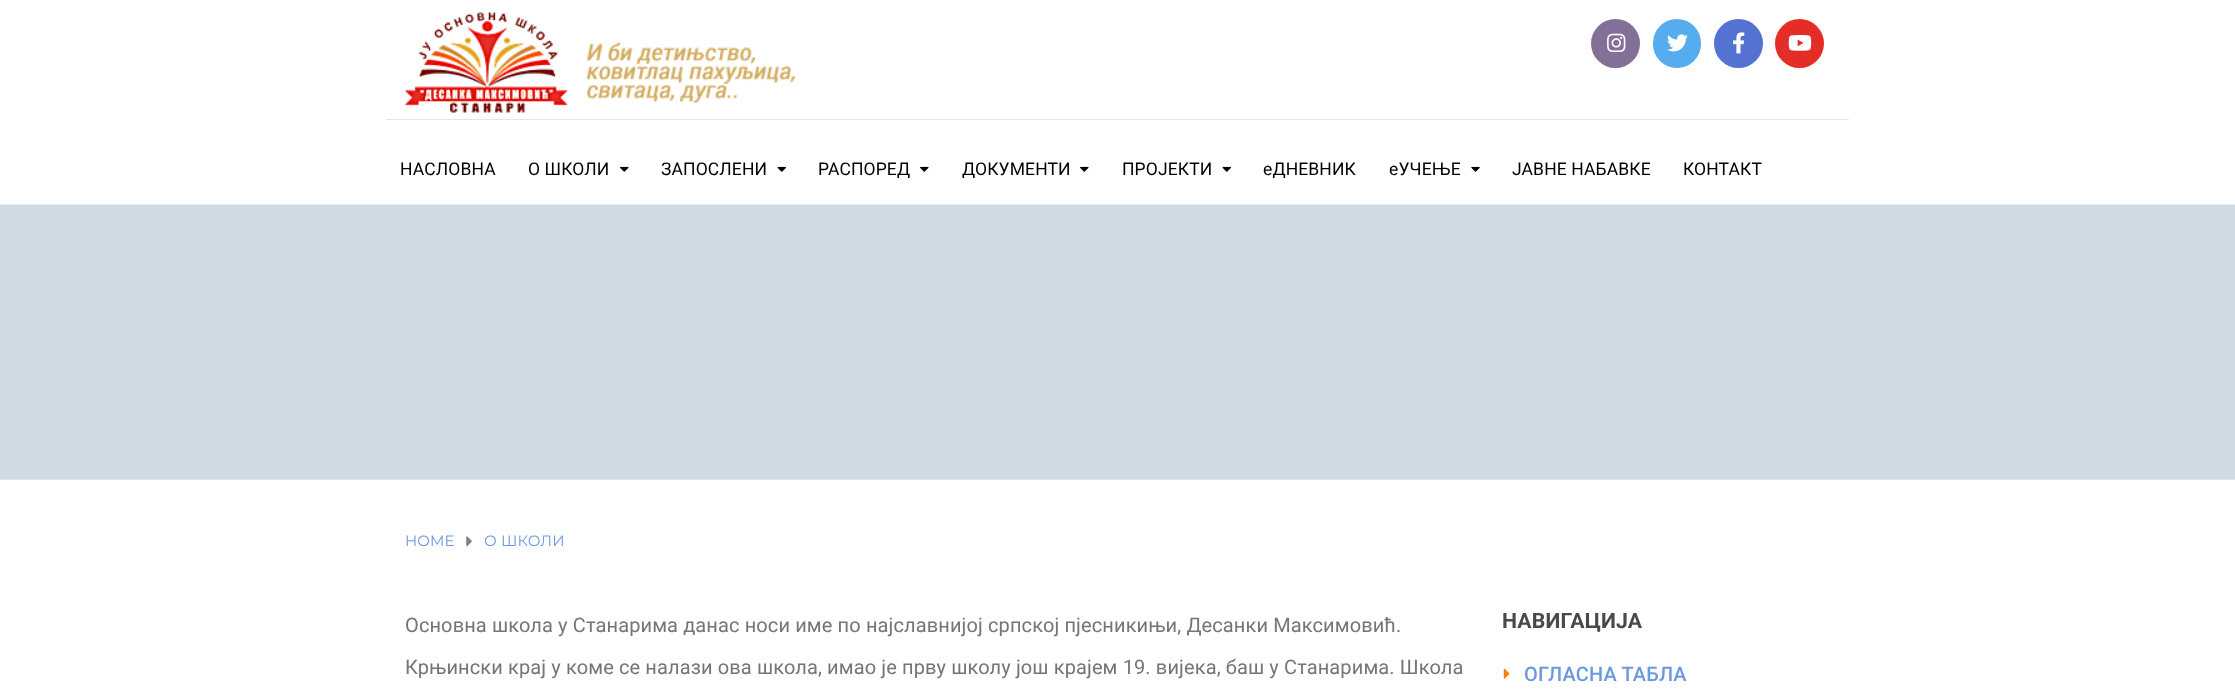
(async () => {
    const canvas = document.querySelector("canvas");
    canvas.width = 2235;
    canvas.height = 695;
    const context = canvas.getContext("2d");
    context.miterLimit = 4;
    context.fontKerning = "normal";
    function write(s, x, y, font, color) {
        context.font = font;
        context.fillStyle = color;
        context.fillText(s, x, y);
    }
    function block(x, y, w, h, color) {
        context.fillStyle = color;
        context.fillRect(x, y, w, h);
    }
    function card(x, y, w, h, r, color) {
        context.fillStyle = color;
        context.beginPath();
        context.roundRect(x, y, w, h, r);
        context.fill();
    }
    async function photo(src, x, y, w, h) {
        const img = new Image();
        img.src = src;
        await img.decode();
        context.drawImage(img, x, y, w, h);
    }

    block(0, 0, 2235, 695, "rgb(255, 255, 255)");
    block(0, 204, 2235, 1, "rgb(235, 235, 235)");
    block(386, 119, 1463, 1, "rgb(229, 229, 229)");
    await photo("media/1.png", 405, 12, 391, 101);
    context.fillStyle = "rgb(132, 111, 153)";
    context.beginPath();
    context.arc(1615.5, 43.5, 24.5, 0, Math.PI * 2);
    context.fill();
    await photo("media/2.png", 1607, 33, 19, 20);
    card(1653, 19, 48, 49, 24, "rgb(85, 172, 238)");
    await photo("media/3.png", 1667, 34, 21, 18);
    context.fillStyle = "rgb(84, 114, 210)";
    context.beginPath();
    context.arc(1738.5, 43.5, 24.5, 0, Math.PI * 2);
    context.fill();
    await photo("media/4.png", 1733, 32, 12, 22);
    context.fillStyle = "rgb(229, 45, 39)";
    context.beginPath();
    context.arc(1799.5, 43.5, 24.5, 0, Math.PI * 2);
    context.fill();
    await photo("media/5.png", 1788, 35, 24, 16);
    context.letterSpacing = "0.12px";
    write("НАСЛОВНА", 400, 175, "17.5px Roboto", "rgb(0, 0, 0)");
    write("О ШКОЛИ", 528, 175, "17.5px Roboto", "rgb(0, 0, 0)");
    await photo("media/6.png", 620, 166, 9, 6);
    write("ЗАПОСЛЕНИ", 661, 175, "17.5px Roboto", "rgb(0, 0, 0)");
    await photo("media/7.png", 777, 166, 9, 6);
    write("РАСПОРЕД", 818, 175, "17.5px Roboto", "rgb(0, 0, 0)");
    await photo("media/6.png", 920, 166, 9, 6);
    write("ДОКУМЕНТИ", 962, 175, "17.5px Roboto", "rgb(0, 0, 0)");
    await photo("media/6.png", 1080, 166, 9, 6);
    write("ПРОЈЕКТИ", 1122, 175, "17.5px Roboto", "rgb(0, 0, 0)");
    await photo("media/7.png", 1222, 166, 9, 6);
    write("еДНЕВНИК", 1263, 175, "17.5px Roboto", "rgb(0, 0, 0)");
    write("еУЧЕЊЕ", 1389, 175, "17.5px Roboto", "rgb(0, 0, 0)");
    await photo("media/8.png", 1471, 166, 9, 6);
    write("ЈАВНЕ НАБАВКЕ", 1512, 175, "17.5px Roboto", "rgb(0, 0, 0)");
    write("КОНТАКТ", 1683, 175, "17.5px Roboto", "rgb(0, 0, 0)");
    block(0, 205, 2235, 274, "rgb(208, 218, 227)");
    block(0, 479, 2235, 1, "rgb(225, 225, 225)");
    write("HOME", 405, 546, "100 15px Montserrat", "rgb(108, 152, 225)");
    await photo("media/9.png", 466, 536, 6, 11);
    write("О ШКОЛИ", 484, 546, "100 15px Montserrat", "rgb(108, 152, 225)");
    write("Основна школа у Станарима данас носи име по најславнијој српској пјесникињи, Десанки Максимовић.", 405, 632, "20px Roboto", "rgb(117, 117, 117)");
    write("Крњински крај у коме се налази ова школа, имао је прву школу још крајем 19. вијека, баш у Станарима. Школа", 405, 674, "20px Roboto", "rgb(117, 117, 117)");
    write("НАВИГАЦИЈА", 1502, 628, "bold 21.25px Roboto", "rgb(73, 73, 73)");
    await photo("media/10.png", 1503, 668, 7, 11);
    write("ОГЛАСНА ТАБЛА", 1524, 681, "500 20px Roboto", "rgb(108, 152, 225)");
})();
